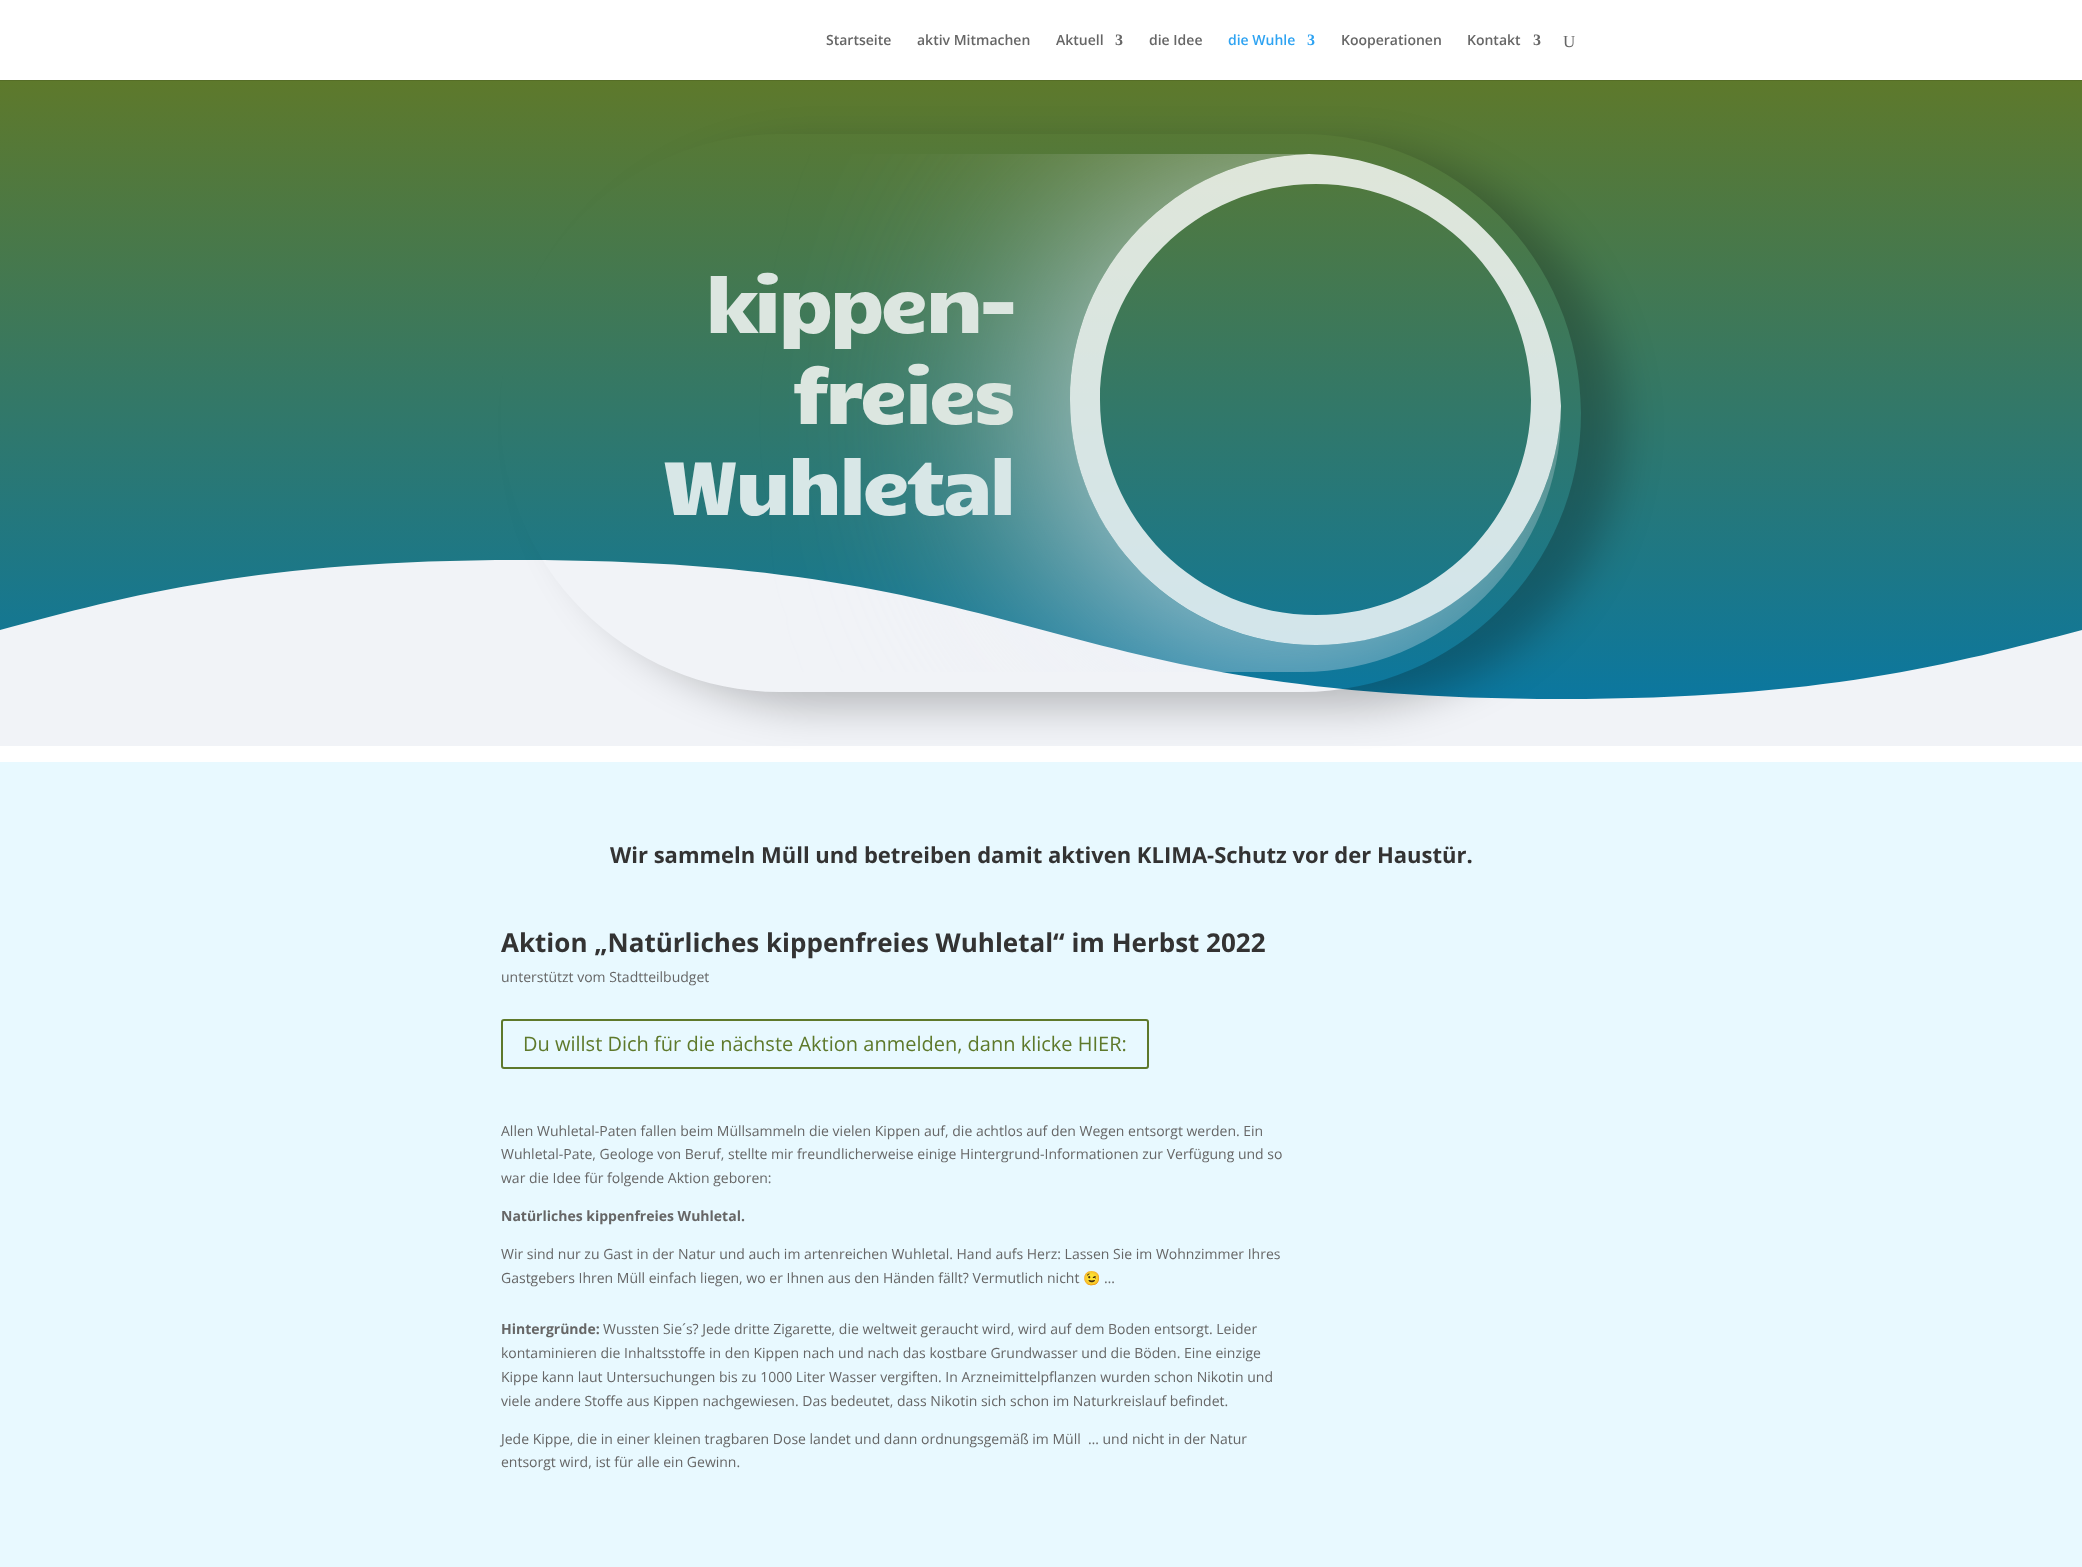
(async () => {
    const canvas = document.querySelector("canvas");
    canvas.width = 2082;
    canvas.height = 1567;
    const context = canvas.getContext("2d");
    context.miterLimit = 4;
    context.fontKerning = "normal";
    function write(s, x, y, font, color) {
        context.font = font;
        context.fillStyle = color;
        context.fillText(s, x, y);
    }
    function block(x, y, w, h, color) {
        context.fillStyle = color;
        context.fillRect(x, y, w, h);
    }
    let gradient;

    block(0, 0, 2082, 1567, "rgb(255, 255, 255)");
    gradient = context.createLinearGradient(1041, 80, 1041, 746);
    gradient.addColorStop(0, "rgb(94, 121, 43)");
    gradient.addColorStop(1, "rgb(5, 119, 168)");
    context.fillStyle = gradient;
    context.fillRect(0, 81, 2082, 618);
    context.fillStyle = "rgb(241, 243, 247)";
    context.beginPath();
    context.moveTo(520, 560);
    context.bezierCurveTo(1041, 560, 1041, 699, 1562, 699);
    context.bezierCurveTo(1822, 699, 1952, 664, 2082, 630);
    context.lineTo(2082, 746);
    context.lineTo(0, 746);
    context.lineTo(0, 630);
    context.bezierCurveTo(130, 595, 260, 560, 520, 560);
    context.closePath();
    context.fill();
    block(0, 762, 2082, 805, "rgb(232, 249, 255)");
    context.beginPath();
    context.roundRect(502, 1020, 646, 48, 2);
    context.strokeStyle = "rgb(94, 121, 43)";
    context.lineWidth = 2;
    context.stroke();
    context.save();
    context.beginPath();
    context.roundRect(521, 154, 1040, 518, 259);
    context.clip();
    context.beginPath();
    context.moveTo(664, 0);
    context.lineTo(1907, 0);
    context.lineTo(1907, 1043);
    context.lineTo(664, 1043);
    context.closePath();
    context.moveTo(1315.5, 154);
    context.bezierCurveTo(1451, 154, 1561, 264, 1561, 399.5);
    context.bezierCurveTo(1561, 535, 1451, 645, 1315.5, 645);
    context.bezierCurveTo(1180, 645, 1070, 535, 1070, 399.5);
    context.bezierCurveTo(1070, 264, 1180, 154, 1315.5, 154);
    context.closePath();
    context.clip("evenodd");
    context.fillStyle = "rgba(237, 240, 248, 0.81)";
    context.filter = "blur(125px)";
    context.beginPath();
    context.roundRect(1040, 176, 491, 491, 245.5);
    context.fill();
    context.filter = "none";
    context.restore();
    block(0, 80, 2082, 1, "rgb(85, 109, 39)");
    write("Startseite", 826, 45, "600 14px Open Sans", "rgb(102, 102, 102)");
    write("aktiv Mitmachen", 917, 45, "600 14px Open Sans", "rgb(102, 102, 102)");
    write("Aktuell", 1056, 45, "600 14px Open Sans", "rgb(102, 102, 102)");
    write("3", 1115, 45, "bold 16px Liberation Serif", "rgb(102, 102, 102)");
    write("die Idee", 1149, 45, "600 14px Open Sans", "rgb(102, 102, 102)");
    write("die Wuhle", 1228, 45, "600 14px Open Sans", "rgb(46, 163, 242)");
    write("3", 1307, 45, "bold 16px Liberation Serif", "rgb(46, 163, 242)");
    write("Kooperationen", 1341, 45, "600 14px Open Sans", "rgb(102, 102, 102)");
    write("Kontakt", 1467, 45, "600 14px Open Sans", "rgb(102, 102, 102)");
    write("3", 1533, 45, "bold 16px Liberation Serif", "rgb(102, 102, 102)");
    write("U", 1563, 47, "17px Liberation Serif", "rgb(102, 102, 102)");
    context.save();
    context.beginPath();
    context.moveTo(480, 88);
    context.lineTo(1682, 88);
    context.lineTo(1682, 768);
    context.lineTo(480, 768);
    context.closePath();
    context.moveTo(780, 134);
    context.lineTo(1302, 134);
    context.bezierCurveTo(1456, 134, 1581, 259, 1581, 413);
    context.bezierCurveTo(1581, 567, 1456, 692, 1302, 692);
    context.lineTo(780, 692);
    context.bezierCurveTo(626, 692, 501, 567, 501, 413);
    context.bezierCurveTo(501, 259, 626, 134, 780, 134);
    context.closePath();
    context.clip("evenodd");
    context.fillStyle = "rgba(0, 0, 0, 0.24)";
    context.filter = "blur(20px)";
    context.beginPath();
    context.roundRect(541, 149, 1080, 558, 279);
    context.fill();
    context.filter = "none";
    context.restore();
    context.fillStyle = "rgba(255, 255, 255, 0.81)";
    context.beginPath();
    context.moveTo(1309, 154);
    context.bezierCurveTo(1446, 158, 1557, 269, 1561, 406);
    context.bezierCurveTo(1557, 539, 1449, 645, 1316, 645);
    context.bezierCurveTo(1180, 645, 1070, 535, 1070, 400);
    context.bezierCurveTo(1070, 266, 1176, 158, 1309, 154);
    context.closePath();
    context.moveTo(1316, 184);
    context.bezierCurveTo(1196, 184, 1100, 280, 1100, 400);
    context.bezierCurveTo(1100, 519, 1196, 615, 1316, 615);
    context.bezierCurveTo(1435, 615, 1531, 519, 1531, 400);
    context.bezierCurveTo(1531, 280, 1435, 184, 1316, 184);
    context.closePath();
    context.fill("evenodd");
    context.letterSpacing = "-3.75px";
    write("kippen-", 705, 333, "76px Candal", "rgb(220, 230, 224)");
    write("freies", 793, 424, "76px Candal", "rgb(220, 230, 224)");
    write("Wuhletal", 662, 515, "76px Candal", "rgb(216, 231, 231)");
    context.letterSpacing = "0px";
    write("Wir sammeln Müll und betreiben damit aktiven KLIMA-Schutz vor der Haustür.", 610, 863, "bold 22px Open Sans", "rgb(51, 51, 51)");
    write("Aktion „Natürliches kippenfreies Wuhletal“ im Herbst 2022", 501, 952, "bold 26px Open Sans", "rgb(51, 51, 51)");
    write("unterstützt vom Stadtteilbudget", 501, 982, "14px Open Sans", "rgb(102, 102, 102)");
    write("Du willst Dich für die nächste Aktion anmelden, dann klicke HIER:", 523, 1051, "20px Open Sans", "rgb(94, 121, 43)");
    write("Allen Wuhletal-Paten fallen beim Müllsammeln die vielen Kippen auf, die achtlos auf den Wegen entsorgt werden. Ein", 501, 1136, "14px Open Sans", "rgb(102, 102, 102)");
    write("Wuhletal-Pate, Geologe von Beruf, stellte mir freundlicherweise einige Hintergrund-Informationen zur Verfügung und so", 501, 1159, "14px Open Sans", "rgb(102, 102, 102)");
    write("war die Idee für folgende Aktion geboren:", 501, 1183, "14px Open Sans", "rgb(102, 102, 102)");
    write("Natürliches kippenfreies Wuhletal.", 501, 1221, "bold 14px Open Sans", "rgb(102, 102, 102)");
    write("Wir sind nur zu Gast in der Natur und auch im artenreichen Wuhletal. Hand aufs Herz: Lassen Sie im Wohnzimmer Ihres", 501, 1259, "14px Open Sans", "rgb(102, 102, 102)");
    write("Gastgebers Ihren Müll einfach liegen, wo er Ihnen aus den Händen fällt? Vermutlich nicht", 501, 1283, "14px Open Sans", "rgb(102, 102, 102)");
    write("😉", 1083, 1283, "14px Noto Color Emoji", "rgb(102, 102, 102)");
    write("…", 1104, 1283, "14px Open Sans", "rgb(102, 102, 102)");
    write("Hintergründe:", 501, 1334, "bold 14px Open Sans", "rgb(102, 102, 102)");
    write("Wussten Sie´s? Jede dritte Zigarette, die weltweit geraucht wird, wird auf dem Boden entsorgt. Leider", 603, 1334, "14px Open Sans", "rgb(102, 102, 102)");
    write("kontaminieren die Inhaltsstoffe in den Kippen nach und nach das kostbare Grundwasser und die Böden. Eine einzige", 501, 1358, "14px Open Sans", "rgb(102, 102, 102)");
    write("Kippe kann laut Untersuchungen bis zu 1000 Liter Wasser vergiften. In Arzneimittelpflanzen wurden schon Nikotin und", 501, 1382, "14px Open Sans", "rgb(102, 102, 102)");
    write("viele andere Stoffe aus Kippen nachgewiesen. Das bedeutet, dass Nikotin sich schon im Naturkreislauf befindet.", 501, 1406, "14px Open Sans", "rgb(102, 102, 102)");
    write("Jede Kippe, die in einer kleinen tragbaren Dose landet und dann ordnungsgemäß im Müll  … und nicht in der Natur", 501, 1444, "14px Open Sans", "rgb(102, 102, 102)");
    write("entsorgt wird, ist für alle ein Gewinn.", 501, 1467, "14px Open Sans", "rgb(102, 102, 102)");
})();
